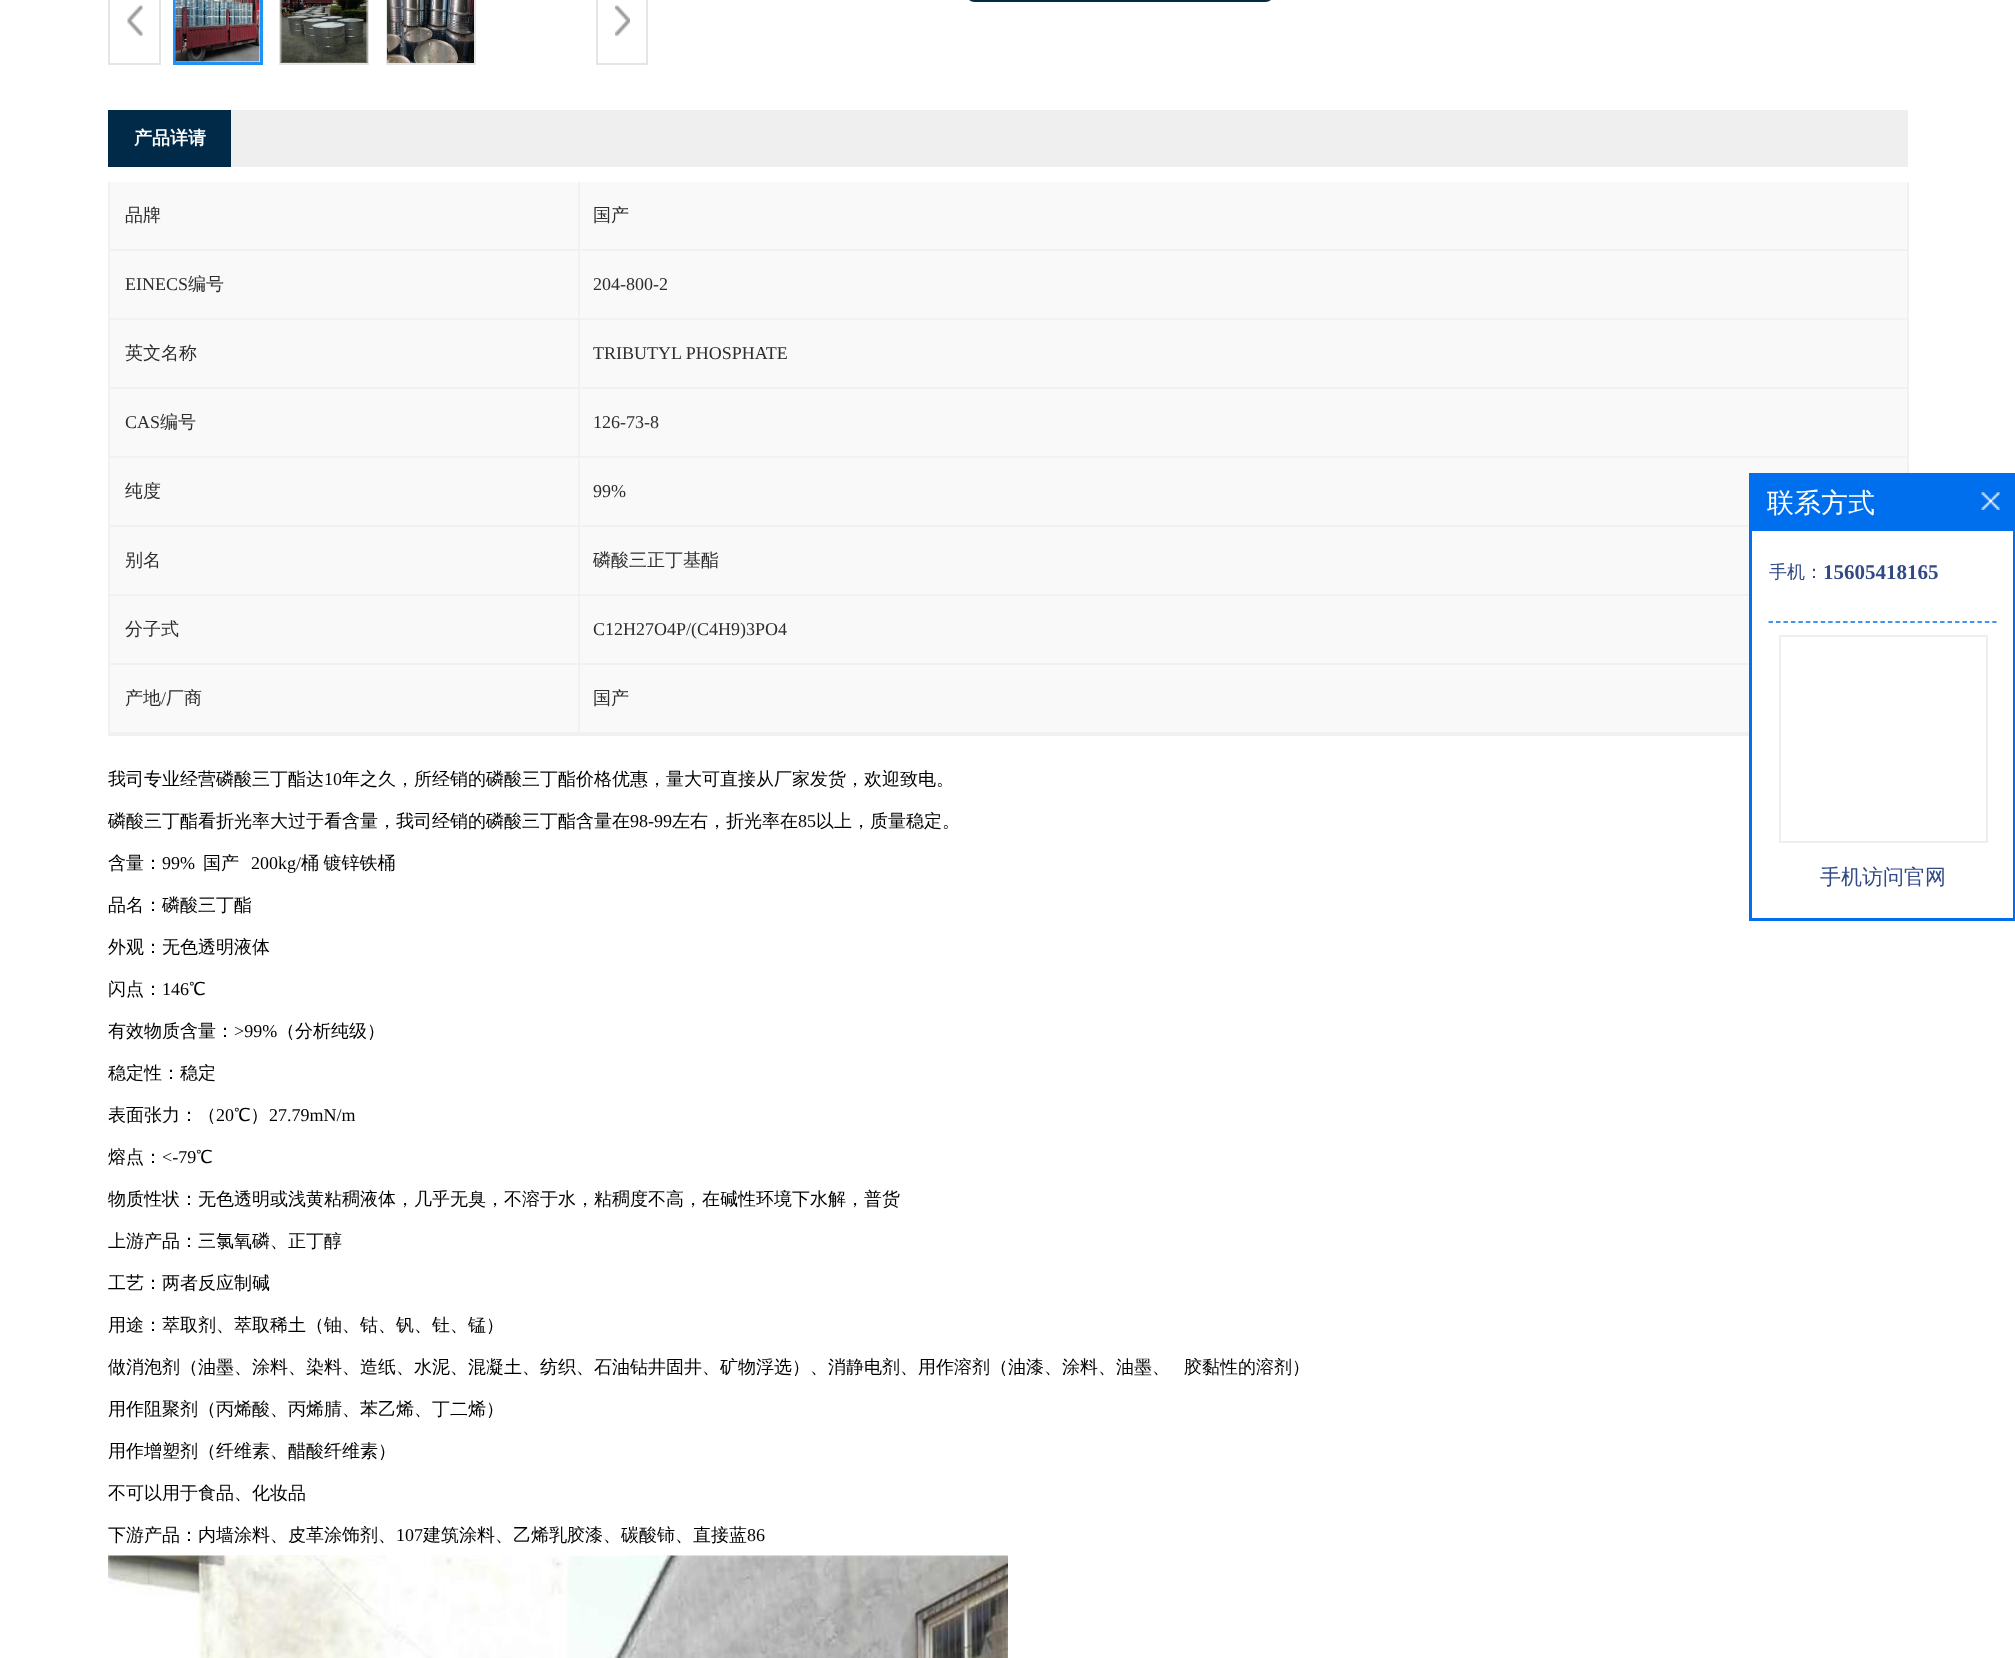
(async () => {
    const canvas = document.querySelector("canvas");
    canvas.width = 2015;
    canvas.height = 1658;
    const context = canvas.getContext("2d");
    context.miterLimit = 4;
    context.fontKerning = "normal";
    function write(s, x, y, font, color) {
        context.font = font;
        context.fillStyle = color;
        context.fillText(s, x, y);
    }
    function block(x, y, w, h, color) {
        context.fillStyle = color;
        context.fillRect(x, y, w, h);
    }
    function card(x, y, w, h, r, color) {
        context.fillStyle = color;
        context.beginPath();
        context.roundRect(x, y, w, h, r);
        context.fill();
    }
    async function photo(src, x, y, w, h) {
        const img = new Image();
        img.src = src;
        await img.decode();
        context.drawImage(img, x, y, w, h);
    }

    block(0, 0, 2015, 1658, "rgb(255, 255, 255)");
    card(966, -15, 308, 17, 15, "rgb(0, 42, 72)");
    await photo("media/1.png", 127, 4, 16, 32);
    context.strokeStyle = "rgb(229, 229, 229)";
    context.lineWidth = 2;
    context.strokeRect(109, -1, 51, 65);
    context.strokeStyle = "rgb(27, 148, 246)";
    context.lineWidth = 3;
    context.strokeRect(174.5, -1.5, 87, 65);
    await photo("media/2.png", 175, 0, 85, 62);
    context.strokeStyle = "rgb(229, 229, 229)";
    context.lineWidth = 2;
    context.strokeRect(280, -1, 88, 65);
    await photo("media/3.png", 280, 0, 88, 63);
    context.strokeRect(387, -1, 88, 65);
    await photo("media/4.png", 387, 0, 87, 63);
    await photo("media/5.png", 615, 4, 15, 32);
    context.strokeRect(597, -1, 50, 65);
    block(231, 110, 1677, 57, "rgb(239, 239, 239)");
    block(108, 110, 123, 57, "rgb(0, 42, 72)");
    write("产品详请", 134, 144, "bold 18px WenQuanYi Zen Hei", "rgb(255, 255, 255)");
    block(108, 734, 1641, 2, "rgb(241, 241, 241)");
    block(108, 182, 2, 553, "rgb(241, 241, 241)");
    block(110, 182, 1797, 550, "rgb(249, 249, 249)");
    block(578, 182, 2, 552, "rgb(241, 241, 241)");
    block(110, 249, 469, 2, "rgb(241, 241, 241)");
    write("品牌", 125, 221, "500 18px WenQuanYi Zen Hei", "rgb(45, 45, 45)");
    block(1907, 182, 2, 291, "rgb(241, 241, 241)");
    block(579, 249, 1329, 2, "rgb(241, 241, 241)");
    write("国产", 593, 221, "500 18px WenQuanYi Zen Hei", "rgb(45, 45, 45)");
    block(110, 318, 1798, 2, "rgb(241, 241, 241)");
    write("EINECS", 125, 290, "18px Liberation Serif", "rgb(45, 45, 45)");
    write("编号", 188, 290, "500 18px WenQuanYi Zen Hei", "rgb(45, 45, 45)");
    write("204-800-2", 593, 290, "18px Liberation Serif", "rgb(45, 45, 45)");
    block(110, 387, 1798, 2, "rgb(241, 241, 241)");
    write("英文名称", 125, 359, "500 18px WenQuanYi Zen Hei", "rgb(45, 45, 45)");
    write("TRIBUTYL PHOSPHATE", 593, 359, "18px Liberation Serif", "rgb(45, 45, 45)");
    block(110, 456, 1798, 2, "rgb(241, 241, 241)");
    write("CAS", 125, 428, "18px Liberation Serif", "rgb(45, 45, 45)");
    write("编号", 160, 428, "500 18px WenQuanYi Zen Hei", "rgb(45, 45, 45)");
    write("126-73-8", 593, 428, "18px Liberation Serif", "rgb(45, 45, 45)");
    block(110, 525, 1639, 2, "rgb(241, 241, 241)");
    write("纯度", 125, 497, "500 18px WenQuanYi Zen Hei", "rgb(45, 45, 45)");
    write("99%", 593, 497, "18px Liberation Serif", "rgb(45, 45, 45)");
    block(110, 594, 1639, 2, "rgb(241, 241, 241)");
    write("别名", 125, 566, "500 18px WenQuanYi Zen Hei", "rgb(45, 45, 45)");
    write("磷酸三正丁基酯", 593, 566, "500 18px WenQuanYi Zen Hei", "rgb(45, 45, 45)");
    block(110, 663, 1639, 2, "rgb(241, 241, 241)");
    write("分子式", 125, 635, "500 18px WenQuanYi Zen Hei", "rgb(45, 45, 45)");
    write("C12H27O4P/(C4H9)3PO4", 593, 635, "18px Liberation Serif", "rgb(45, 45, 45)");
    block(110, 732, 1639, 2, "rgb(241, 241, 241)");
    write("产地", 125, 704, "500 18px WenQuanYi Zen Hei", "rgb(45, 45, 45)");
    write("/", 161, 704, "18px Liberation Serif", "rgb(45, 45, 45)");
    write("厂商", 166, 704, "500 18px WenQuanYi Zen Hei", "rgb(45, 45, 45)");
    write("国产", 593, 704, "500 18px WenQuanYi Zen Hei", "rgb(45, 45, 45)");
    write("我司专业经营磷酸三丁酯达", 108, 785, "500 18px WenQuanYi Zen Hei", "rgb(0, 0, 0)");
    write("10", 324, 785, "18px Liberation Serif", "rgb(0, 0, 0)");
    write("年之久，所经销的磷酸三丁酯价格优惠，量大可直接从厂家发货，欢迎致电。", 342, 785, "500 18px WenQuanYi Zen Hei", "rgb(0, 0, 0)");
    write("磷酸三丁酯看折光率大过于看含量，我司经销的磷酸三丁酯含量在", 108, 827, "500 18px WenQuanYi Zen Hei", "rgb(0, 0, 0)");
    write("98-99", 630, 827, "18px Liberation Serif", "rgb(0, 0, 0)");
    write("左右，折光率在", 672, 827, "500 18px WenQuanYi Zen Hei", "rgb(0, 0, 0)");
    write("85", 798, 827, "18px Liberation Serif", "rgb(0, 0, 0)");
    write("以上，质量稳定。", 816, 827, "500 18px WenQuanYi Zen Hei", "rgb(0, 0, 0)");
    write("含量：", 108, 869, "500 18px WenQuanYi Zen Hei", "rgb(0, 0, 0)");
    write("99%", 162, 869, "18px Liberation Serif", "rgb(0, 0, 0)");
    write("国产", 203, 869, "500 18px WenQuanYi Zen Hei", "rgb(0, 0, 0)");
    write("200kg/", 251, 869, "18px Liberation Serif", "rgb(0, 0, 0)");
    context.wordSpacing = "-1px";
    write("桶 镀锌铁桶", 301, 869, "500 18px WenQuanYi Zen Hei", "rgb(0, 0, 0)");
    context.wordSpacing = "0px";
    write("品名：磷酸三丁酯", 108, 911, "500 18px WenQuanYi Zen Hei", "rgb(0, 0, 0)");
    write("外观：无色透明液体", 108, 953, "500 18px WenQuanYi Zen Hei", "rgb(0, 0, 0)");
    write("闪点：", 108, 995, "500 18px WenQuanYi Zen Hei", "rgb(0, 0, 0)");
    write("146", 162, 995, "18px Liberation Serif", "rgb(0, 0, 0)");
    write("℃", 189, 995, "500 18px WenQuanYi Zen Hei", "rgb(0, 0, 0)");
    write("有效物质含量：", 108, 1037, "500 18px WenQuanYi Zen Hei", "rgb(0, 0, 0)");
    write(">99%", 234, 1037, "18px Liberation Serif", "rgb(0, 0, 0)");
    write("（分析纯级）", 277, 1037, "500 18px WenQuanYi Zen Hei", "rgb(0, 0, 0)");
    write("稳定性：稳定", 108, 1079, "500 18px WenQuanYi Zen Hei", "rgb(0, 0, 0)");
    write("表面张力：（", 108, 1121, "500 18px WenQuanYi Zen Hei", "rgb(0, 0, 0)");
    write("20", 216, 1121, "18px Liberation Serif", "rgb(0, 0, 0)");
    write("℃）", 234, 1121, "500 18px WenQuanYi Zen Hei", "rgb(0, 0, 0)");
    write("27.79mN/m", 269, 1121, "18px Liberation Serif", "rgb(0, 0, 0)");
    write("熔点：", 108, 1163, "500 18px WenQuanYi Zen Hei", "rgb(0, 0, 0)");
    write("<-79", 162, 1163, "18px Liberation Serif", "rgb(0, 0, 0)");
    write("℃", 196, 1163, "500 18px WenQuanYi Zen Hei", "rgb(0, 0, 0)");
    write("物质性状：无色透明或浅黄粘稠液体，几乎无臭，不溶于水，粘稠度不高，在碱性环境下水解，普货", 108, 1205, "500 18px WenQuanYi Zen Hei", "rgb(0, 0, 0)");
    write("上游产品：三氯氧磷、正丁醇", 108, 1247, "500 18px WenQuanYi Zen Hei", "rgb(0, 0, 0)");
    write("工艺：两者反应制碱", 108, 1289, "500 18px WenQuanYi Zen Hei", "rgb(0, 0, 0)");
    write("用途：萃取剂、萃取稀土（铀、钴、钒、钍、锰）", 108, 1331, "500 18px WenQuanYi Zen Hei", "rgb(0, 0, 0)");
    write("做消泡剂（油墨、涂料、染料、造纸、水泥、混凝土、纺织、石油钻井固井、矿物浮选）、消静电剂、用作溶剂（油漆、涂料、油墨、", 108, 1373, "500 18px WenQuanYi Zen Hei", "rgb(0, 0, 0)");
    write("胶黏性的溶剂）", 1184, 1373, "500 18px WenQuanYi Zen Hei", "rgb(0, 0, 0)");
    write("用作阻聚剂（丙烯酸、丙烯腈、苯乙烯、丁二烯）", 108, 1415, "500 18px WenQuanYi Zen Hei", "rgb(0, 0, 0)");
    write("用作增塑剂（纤维素、醋酸纤维素）", 108, 1457, "500 18px WenQuanYi Zen Hei", "rgb(0, 0, 0)");
    write("不可以用于食品、化妆品", 108, 1499, "500 18px WenQuanYi Zen Hei", "rgb(0, 0, 0)");
    write("下游产品：内墙涂料、皮革涂饰剂、", 108, 1541, "500 18px WenQuanYi Zen Hei", "rgb(0, 0, 0)");
    write("107", 396, 1541, "18px Liberation Serif", "rgb(0, 0, 0)");
    write("建筑涂料、乙烯乳胶漆、碳酸铈、直接蓝", 423, 1541, "500 18px WenQuanYi Zen Hei", "rgb(0, 0, 0)");
    write("86", 747, 1541, "18px Liberation Serif", "rgb(0, 0, 0)");
    await photo("media/6.png", 108, 1555, 900, 103);
    block(1749, 473, 266, 448, "rgb(0, 111, 237)");
    write("联系方式", 1767, 512, "500 27px WenQuanYi Zen Hei", "rgb(255, 255, 255)");
    await photo("media/7.png", 1981, 492, 19, 18);
    block(1752, 531, 261, 387, "rgb(255, 255, 255)");
    context.beginPath();
    context.moveTo(1768.5, 622);
    context.lineTo(1996.5, 622);
    context.strokeStyle = "rgb(0, 111, 237)";
    context.lineWidth = 1.5;
    context.setLineDash([4.5, 2.96]);
    context.stroke();
    write("手机：", 1769, 578, "500 18px WenQuanYi Zen Hei", "rgb(49, 73, 133)");
    write("15605418165", 1823, 579, "bold 21px Liberation Serif", "rgb(49, 73, 133)");
    context.strokeStyle = "rgb(238, 238, 238)";
    context.lineWidth = 2;
    context.setLineDash([]);
    context.strokeRect(1780, 636, 207, 206);
    write("手机访问官网", 1820, 884, "500 21px WenQuanYi Zen Hei", "rgb(49, 73, 133)");
})();
